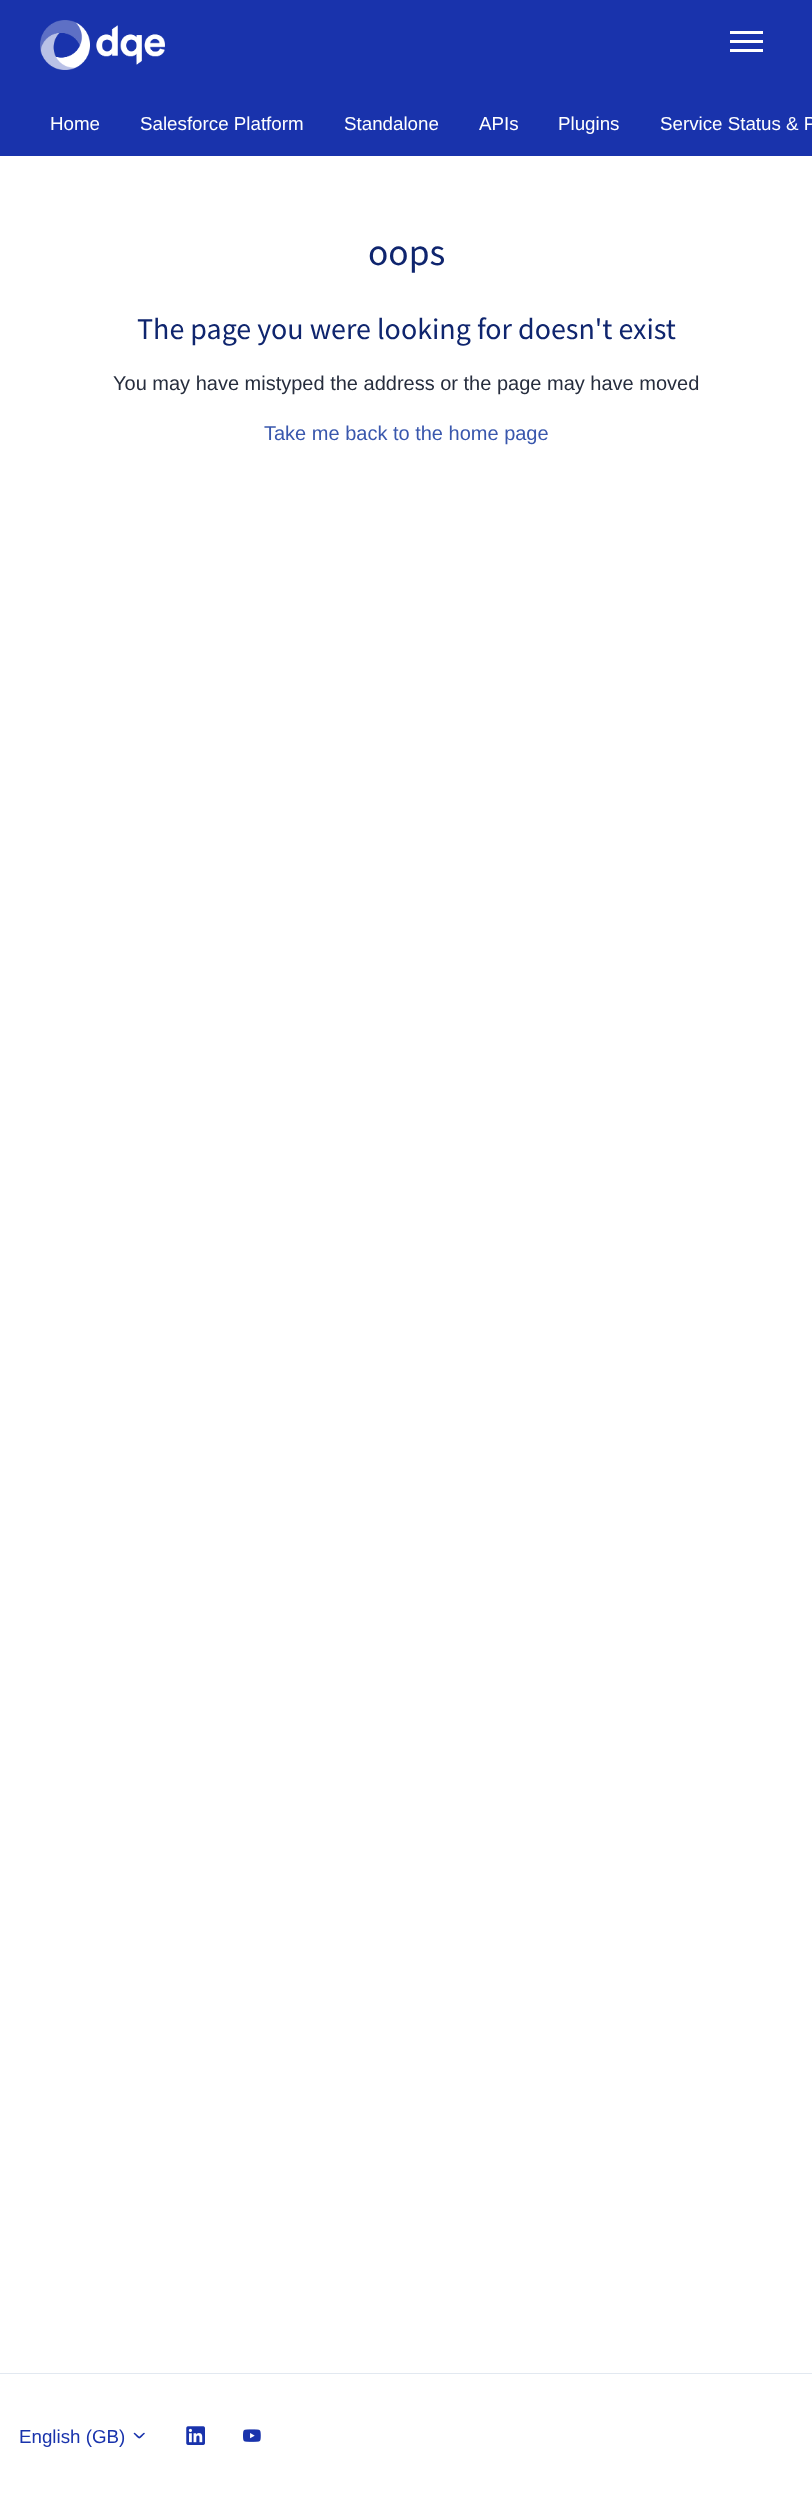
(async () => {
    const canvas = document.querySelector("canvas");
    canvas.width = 812;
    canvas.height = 2499;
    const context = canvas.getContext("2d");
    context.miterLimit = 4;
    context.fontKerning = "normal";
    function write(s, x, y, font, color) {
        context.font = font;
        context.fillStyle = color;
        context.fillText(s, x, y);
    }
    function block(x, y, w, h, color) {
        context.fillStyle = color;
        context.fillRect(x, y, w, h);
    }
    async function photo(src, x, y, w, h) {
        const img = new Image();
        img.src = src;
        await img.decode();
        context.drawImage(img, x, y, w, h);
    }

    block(0, 0, 812, 2499, "rgb(255, 255, 255)");
    block(0, 0, 812, 156, "rgb(25, 51, 172)");
    await photo("media/1.png", 40, 20, 125, 50);
    block(730, 40, 33, 3, "rgb(255, 255, 255)");
    block(730, 31, 33, 3, "rgb(255, 255, 255)");
    block(730, 49, 33, 3, "rgb(255, 255, 255)");
    write("Home", 50, 130, "18.75px Liberation Sans", "rgb(255, 255, 255)");
    write("Salesforce Platform", 140, 130, "18.75px Liberation Sans", "rgb(255, 255, 255)");
    write("Standalone", 344, 130, "18.75px Liberation Sans", "rgb(255, 255, 255)");
    write("APIs", 479, 130, "18.75px Liberation Sans", "rgb(255, 255, 255)");
    write("Plugins", 558, 130, "18.75px Liberation Sans", "rgb(255, 255, 255)");
    write("Service Status & P", 660, 130, "18.75px Liberation Sans", "rgb(255, 255, 255)");
    write("oops", 368, 265, "37.5px Source Sans Pro", "rgb(15, 37, 110)");
    write("The page you were looking for doesn't exist", 137, 339, "30px Source Sans Pro", "rgb(15, 37, 110)");
    write("You may have mistyped the address or the page may have moved", 113, 390, "20px Liberation Sans", "rgb(38, 45, 61)");
    write("Take me back to the home page", 264, 440, "20px Liberation Sans", "rgb(57, 87, 173)");
    block(0, 2373, 812, 1, "rgb(226, 232, 240)");
    write("English (GB)", 19, 2443, "18.75px Liberation Sans", "rgb(25, 51, 172)");
    context.beginPath();
    context.moveTo(134.5, 2433.5);
    context.bezierCurveTo(140.5, 2439, 138, 2439, 144, 2433.5);
    context.strokeStyle = "rgb(25, 51, 172)";
    context.lineWidth = 1.6;
    context.lineCap = "round";
    context.stroke();
    await photo("media/2.png", 186, 2426, 19, 19);
    await photo("media/3.png", 243, 2429, 18, 13);
})();
